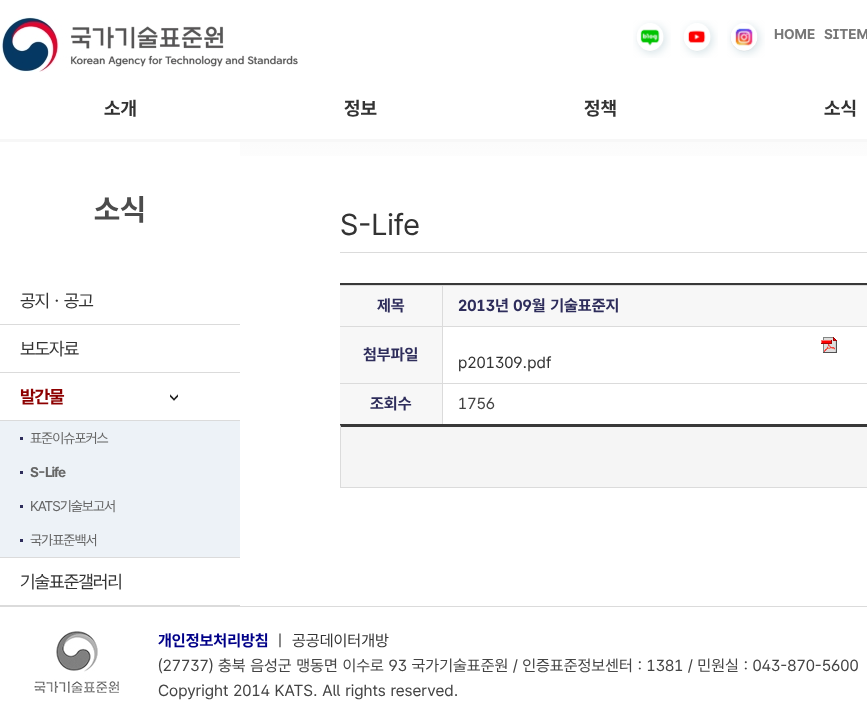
(async () => {
    const canvas = document.querySelector("canvas");
    canvas.width = 867;
    canvas.height = 702;
    const context = canvas.getContext("2d");
    context.miterLimit = 4;
    context.fontKerning = "normal";
    function write(s, x, y, font, color) {
        context.font = font;
        context.fillStyle = color;
        context.fillText(s, x, y);
    }
    function block(x, y, w, h, color) {
        context.fillStyle = color;
        context.fillRect(x, y, w, h);
    }
    async function photo(src, x, y, w, h) {
        const img = new Image();
        img.src = src;
        await img.decode();
        context.drawImage(img, x, y, w, h);
    }
    let gradient;

    block(0, 0, 867, 702, "rgb(255, 255, 255)");
    await photo("media/1.png", 1, 17, 297, 55);
    await photo("media/2.png", 633, 20, 38, 38);
    await photo("media/3.png", 680, 20, 38, 38);
    await photo("media/4.png", 727, 20, 38, 38);
    write("HOME", 774, 39, "bold 14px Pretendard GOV", "rgb(119, 119, 119)");
    write("SITEM", 824, 39, "bold 14px Pretendard GOV", "rgb(119, 119, 119)");
    write("소개", 104, 115, "bold 19px Pretendard GOV", "rgb(51, 51, 51)");
    write("정보", 344, 115, "bold 19px Pretendard GOV", "rgb(51, 51, 51)");
    write("정책", 584, 115, "bold 19px Pretendard GOV", "rgb(51, 51, 51)");
    write("소식", 824, 115, "bold 19px Pretendard GOV", "rgb(51, 51, 51)");
    gradient = context.createLinearGradient(434, 606, 434, 142);
    gradient.addColorStop(0, "rgb(255, 255, 255)");
    gradient.addColorStop(0.92, "rgb(255, 255, 255)");
    gradient.addColorStop(1, "rgb(251, 251, 251)");
    context.fillStyle = gradient;
    context.fillRect(240, 142, 627, 14);
    block(0, 139, 867, 3, "rgb(247, 247, 247)");
    write("소식", 94, 220, "bold 30px Pretendard GOV", "rgb(76, 76, 76)");
    block(0, 324, 240, 1, "rgb(219, 219, 219)");
    context.letterSpacing = "-1px";
    write("공지ㆍ공고", 20, 307, "18px Pretendard GOV", "rgb(51, 51, 51)");
    block(0, 372, 240, 1, "rgb(219, 219, 219)");
    write("보도자료", 20, 355, "18px Pretendard GOV", "rgb(51, 51, 51)");
    await photo("media/5.png", 0, 373, 240, 47);
    block(0, 420, 240, 1, "rgb(219, 219, 219)");
    write("발간물", 20, 403, "bold 18px Pretendard GOV", "rgb(141, 0, 0)");
    block(0, 557, 240, 1, "rgb(219, 219, 219)");
    block(0, 421, 240, 136, "rgb(237, 242, 247)");
    write("표준이슈포커스", 30, 443, "14px Pretendard GOV", "rgb(102, 102, 102)");
    block(20, 437, 3, 3, "rgb(46, 45, 91)");
    write("S-Life", 30, 477, "bold 14px Pretendard GOV", "rgb(102, 102, 102)");
    block(20, 471, 3, 3, "rgb(46, 45, 91)");
    write("KATS기술보고서", 30, 511, "14px Pretendard GOV", "rgb(102, 102, 102)");
    block(20, 505, 3, 3, "rgb(46, 45, 91)");
    write("국가표준백서", 30, 545, "14px Pretendard GOV", "rgb(102, 102, 102)");
    block(20, 539, 3, 3, "rgb(46, 45, 91)");
    block(0, 605, 240, 1, "rgb(219, 219, 219)");
    write("기술표준갤러리", 20, 588, "18px Pretendard GOV", "rgb(51, 51, 51)");
    block(340, 252, 527, 1, "rgb(219, 219, 219)");
    context.letterSpacing = "0px";
    write("S-Life", 340, 235, "30px Pretendard GOV", "rgb(51, 51, 51)");
    block(340, 283, 527, 2, "rgb(56, 56, 56)");
    block(340, 424, 527, 1, "rgb(56, 56, 56)");
    block(340, 286, 102, 40, "rgb(247, 247, 247)");
    block(340, 285, 527, 1, "rgb(219, 219, 219)");
    block(442, 285, 1, 41, "rgb(219, 219, 219)");
    write("제목", 377, 311, "bold 16px Pretendard GOV", "rgb(46, 45, 91)");
    block(443, 286, 424, 40, "rgb(247, 247, 247)");
    write("2013년 09월 기술표준지", 458, 311, "bold 16px Pretendard GOV", "rgb(46, 45, 91)");
    block(340, 327, 102, 56, "rgb(247, 247, 247)");
    block(340, 326, 527, 1, "rgb(219, 219, 219)");
    block(442, 326, 1, 57, "rgb(219, 219, 219)");
    write("첨부파일", 363, 360, "bold 16px Pretendard GOV", "rgb(46, 45, 91)");
    await photo("media/6.png", 821, 337, 16, 16);
    write("p201309.pdf", 458, 368, "16px Pretendard GOV", "rgb(51, 51, 51)");
    block(340, 384, 102, 40, "rgb(247, 247, 247)");
    block(340, 383, 527, 1, "rgb(219, 219, 219)");
    block(442, 383, 1, 41, "rgb(219, 219, 219)");
    write("조회수", 370, 409, "bold 16px Pretendard GOV", "rgb(46, 45, 91)");
    write("1756", 458, 409, "16px Pretendard GOV", "rgb(68, 68, 68)");
    block(341, 427, 526, 60, "rgb(245, 245, 245)");
    context.fillStyle = "rgb(56, 56, 56)";
    context.beginPath();
    context.moveTo(340, 425);
    context.lineTo(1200, 425);
    context.lineTo(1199, 427);
    context.lineTo(341, 427);
    context.closePath();
    context.fill();
    block(340, 487, 527, 1, "rgb(219, 219, 219)");
    context.beginPath();
    context.moveTo(340, 488);
    context.lineTo(340, 425);
    context.lineTo(341, 427);
    context.lineTo(341, 487);
    context.closePath();
    context.fill();
    block(0, 606, 867, 1, "rgb(219, 219, 219)");
    await photo("media/7.png", 34, 631, 85, 62);
    write("개인정보처리방침", 158, 646, "bold 16px Pretendard GOV", "rgb(0, 0, 136)");
    write("ㅣ", 273, 646, "16px Pretendard GOV", "rgb(68, 68, 68)");
    write("공공데이터개방", 292, 646, "16px Pretendard GOV", "rgb(51, 51, 51)");
    write("(27737) 충북 음성군 맹동면 이수로 93 국가기술표준원 / 인증표준정보센터 : 1381 / 민원실 : 043-870-5600", 158, 671, "16px Pretendard GOV", "rgb(68, 68, 68)");
    write("Copyright 2014 KATS. All rights reserved.", 158, 696, "16px Pretendard GOV", "rgb(68, 68, 68)");
})();
